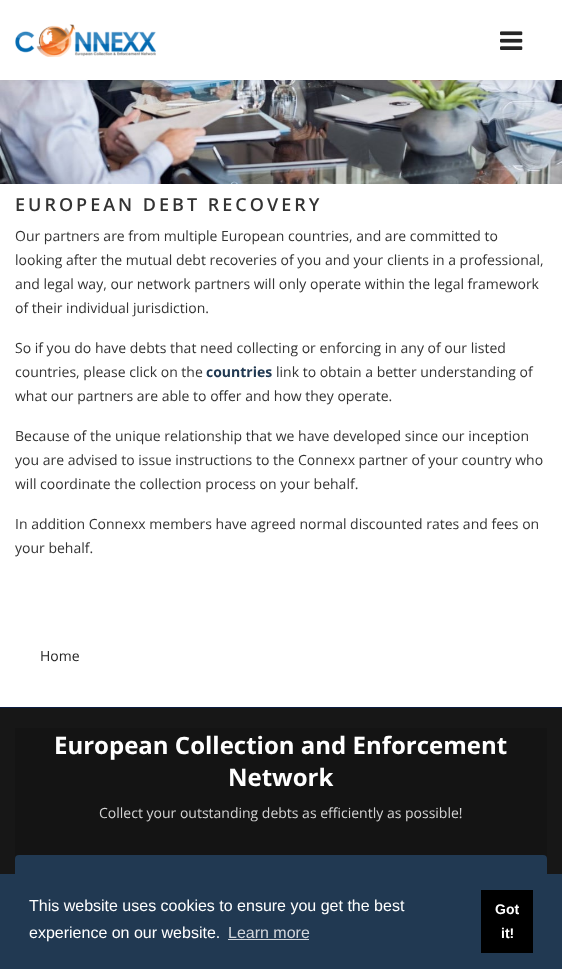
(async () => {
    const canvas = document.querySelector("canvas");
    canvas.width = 562;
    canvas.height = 969;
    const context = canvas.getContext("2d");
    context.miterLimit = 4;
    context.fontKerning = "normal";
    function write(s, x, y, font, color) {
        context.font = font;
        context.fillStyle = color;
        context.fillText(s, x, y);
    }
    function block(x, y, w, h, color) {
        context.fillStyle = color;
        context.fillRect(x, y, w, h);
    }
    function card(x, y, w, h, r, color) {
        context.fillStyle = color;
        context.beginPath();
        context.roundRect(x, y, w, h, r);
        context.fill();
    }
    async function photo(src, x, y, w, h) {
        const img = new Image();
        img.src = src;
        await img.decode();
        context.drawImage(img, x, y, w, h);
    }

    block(0, 0, 562, 969, "rgb(255, 255, 255)");
    await photo("media/3.png", 0, 80, 562, 104);
    context.fillStyle = "rgba(0, 0, 0, 0.05)";
    context.filter = "blur(2.5px)";
    context.beginPath();
    context.rect(0, 2, 562, 80);
    context.fill();
    context.filter = "none";
    block(0, 0, 562, 80, "rgb(255, 255, 255)");
    await photo("media/1.png", 15, 24, 141, 33);
    await photo("media/2.png", 500, 31, 23, 19);
    context.letterSpacing = "3px";
    write("EUROPEAN DEBT RECOVERY", 15, 211, "600 18px Open Sans", "rgb(51, 51, 51)");
    context.letterSpacing = "0px";
    write("Our partners are from multiple European countries, and are committed to", 15, 241, "14px Open Sans", "rgb(51, 51, 51)");
    write("looking after the mutual debt recoveries of you and your clients in a professional,", 15, 265, "14px Open Sans", "rgb(51, 51, 51)");
    write("and legal way, our network partners will only operate within the legal framework", 15, 289, "14px Open Sans", "rgb(51, 51, 51)");
    write("of their individual jurisdiction.", 15, 313, "14px Open Sans", "rgb(51, 51, 51)");
    write("So if you do have debts that need collecting or enforcing in any of our listed", 15, 353, "14px Open Sans", "rgb(51, 51, 51)");
    write("countries, please click on the", 15, 377, "14px Open Sans", "rgb(51, 51, 51)");
    write("countries", 206, 377, "bold 14px Open Sans", "rgb(33, 57, 82)");
    write("link to obtain a better understanding of", 276, 377, "14px Open Sans", "rgb(51, 51, 51)");
    write("what our partners are able to offer and how they operate.", 15, 401, "14px Open Sans", "rgb(51, 51, 51)");
    write("Because of the unique relationship that we have developed since our inception", 15, 441, "14px Open Sans", "rgb(51, 51, 51)");
    write("you are advised to issue instructions to the Connexx partner of your country who", 15, 465, "14px Open Sans", "rgb(51, 51, 51)");
    write("will coordinate the collection process on your behalf.", 15, 489, "14px Open Sans", "rgb(51, 51, 51)");
    write("In addition Connexx members have agreed normal discounted rates and fees on", 15, 529, "14px Open Sans", "rgb(51, 51, 51)");
    write("your behalf.", 15, 553, "14px Open Sans", "rgb(51, 51, 51)");
    write("Home", 40, 661, "14px Open Sans", "rgb(37, 37, 37)");
    block(0, 708, 562, 166, "rgb(23, 23, 23)");
    block(0, 707, 562, 1, "rgb(11, 29, 66)");
    block(15, 728, 532, 131, "rgb(20, 20, 20)");
    write("European Collection and Enforcement", 54, 754, "bold 24px Open Sans", "rgb(255, 255, 255)");
    write("Network", 228, 786, "bold 24px Open Sans", "rgb(255, 255, 255)");
    write("Collect your outstanding debts as efficiently as possible!", 99, 818, "14px Open Sans", "rgb(213, 213, 213)");
    card(15, 855, 532, 52, 4, "rgb(33, 57, 82)");
    block(0, 874, 562, 95, "rgb(33, 57, 82)");
    write("This website uses cookies to ensure you get the best", 29, 911, "16px Liberation Sans", "rgb(255, 255, 255)");
    write("experience on our website.", 29, 938, "16px Liberation Sans", "rgb(255, 255, 255)");
    write("Learn more", 228, 938, "16px Liberation Sans", "rgb(211, 215, 220)");
    block(228, 939, 81, 1, "rgb(211, 215, 220)");
    block(481, 890, 52, 63, "rgb(0, 0, 0)");
    write("Got", 495, 914, "bold 14px Liberation Sans", "rgb(255, 255, 255)");
    write("it!", 501, 938, "bold 14px Liberation Sans", "rgb(255, 255, 255)");
})();
